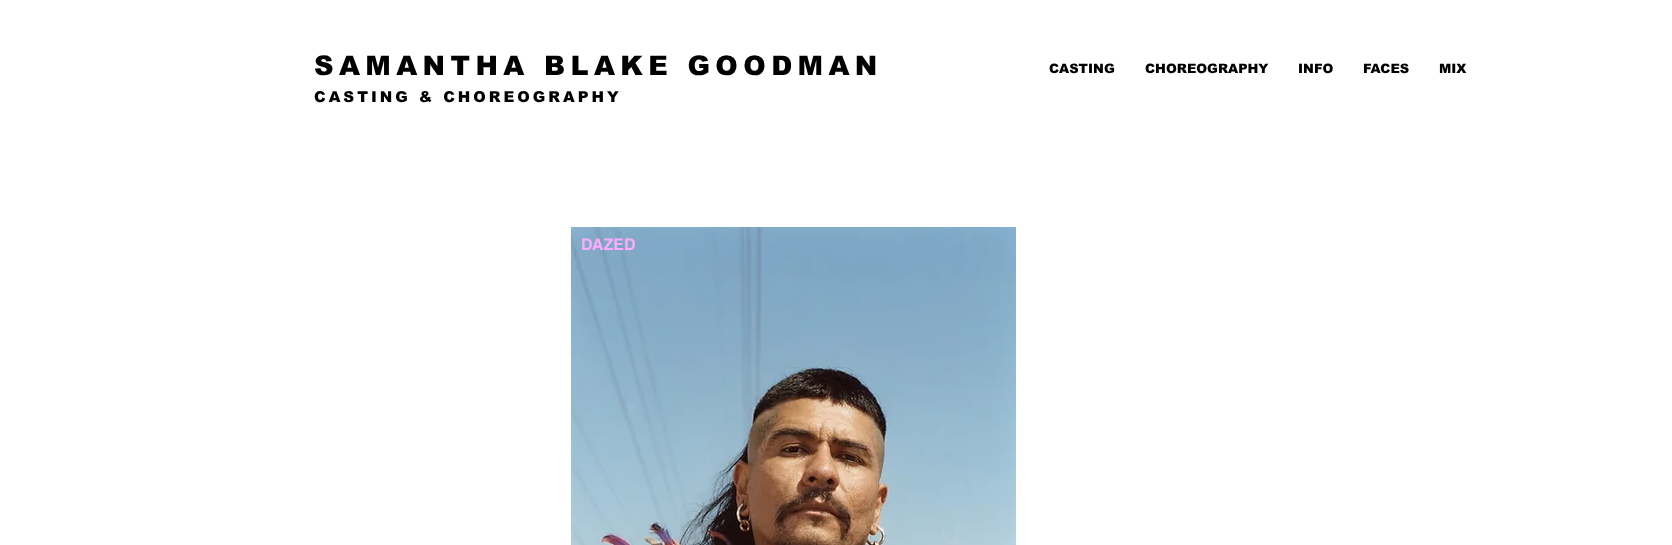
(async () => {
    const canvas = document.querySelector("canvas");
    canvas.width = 1672;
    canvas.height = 545;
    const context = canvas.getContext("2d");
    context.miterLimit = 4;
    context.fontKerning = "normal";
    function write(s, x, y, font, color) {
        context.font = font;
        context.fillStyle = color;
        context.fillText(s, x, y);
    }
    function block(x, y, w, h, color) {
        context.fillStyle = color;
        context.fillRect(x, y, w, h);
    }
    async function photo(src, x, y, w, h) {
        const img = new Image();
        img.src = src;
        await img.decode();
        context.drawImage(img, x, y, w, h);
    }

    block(0, 0, 1672, 545, "rgb(255, 255, 255)");
    context.letterSpacing = "5.4px";
    write("SAMANTHA BLAKE GOODMAN", 314, 75, "900 27px arial", "rgb(0, 0, 0)");
    context.letterSpacing = "3px";
    write("CASTING & CHOREOGRAPHY", 314, 102, "900 15px arial", "rgb(0, 0, 0)");
    context.letterSpacing = "0px";
    write("CASTING", 1049, 73, "900 13px arial", "rgb(0, 0, 0)");
    write("CHOREOGRAPHY", 1145, 73, "900 13px arial", "rgb(0, 0, 0)");
    write("INFO", 1298, 73, "900 13px arial", "rgb(0, 0, 0)");
    write("FACES", 1363, 73, "900 13px arial", "rgb(0, 0, 0)");
    write("MIX", 1439, 73, "900 13px arial", "rgb(0, 0, 0)");
    await photo("media/1.png", 571, 227, 445, 318);
    write("DAZED", 581, 250, "bold 16px helvetica", "rgb(252, 171, 255)");
})();
